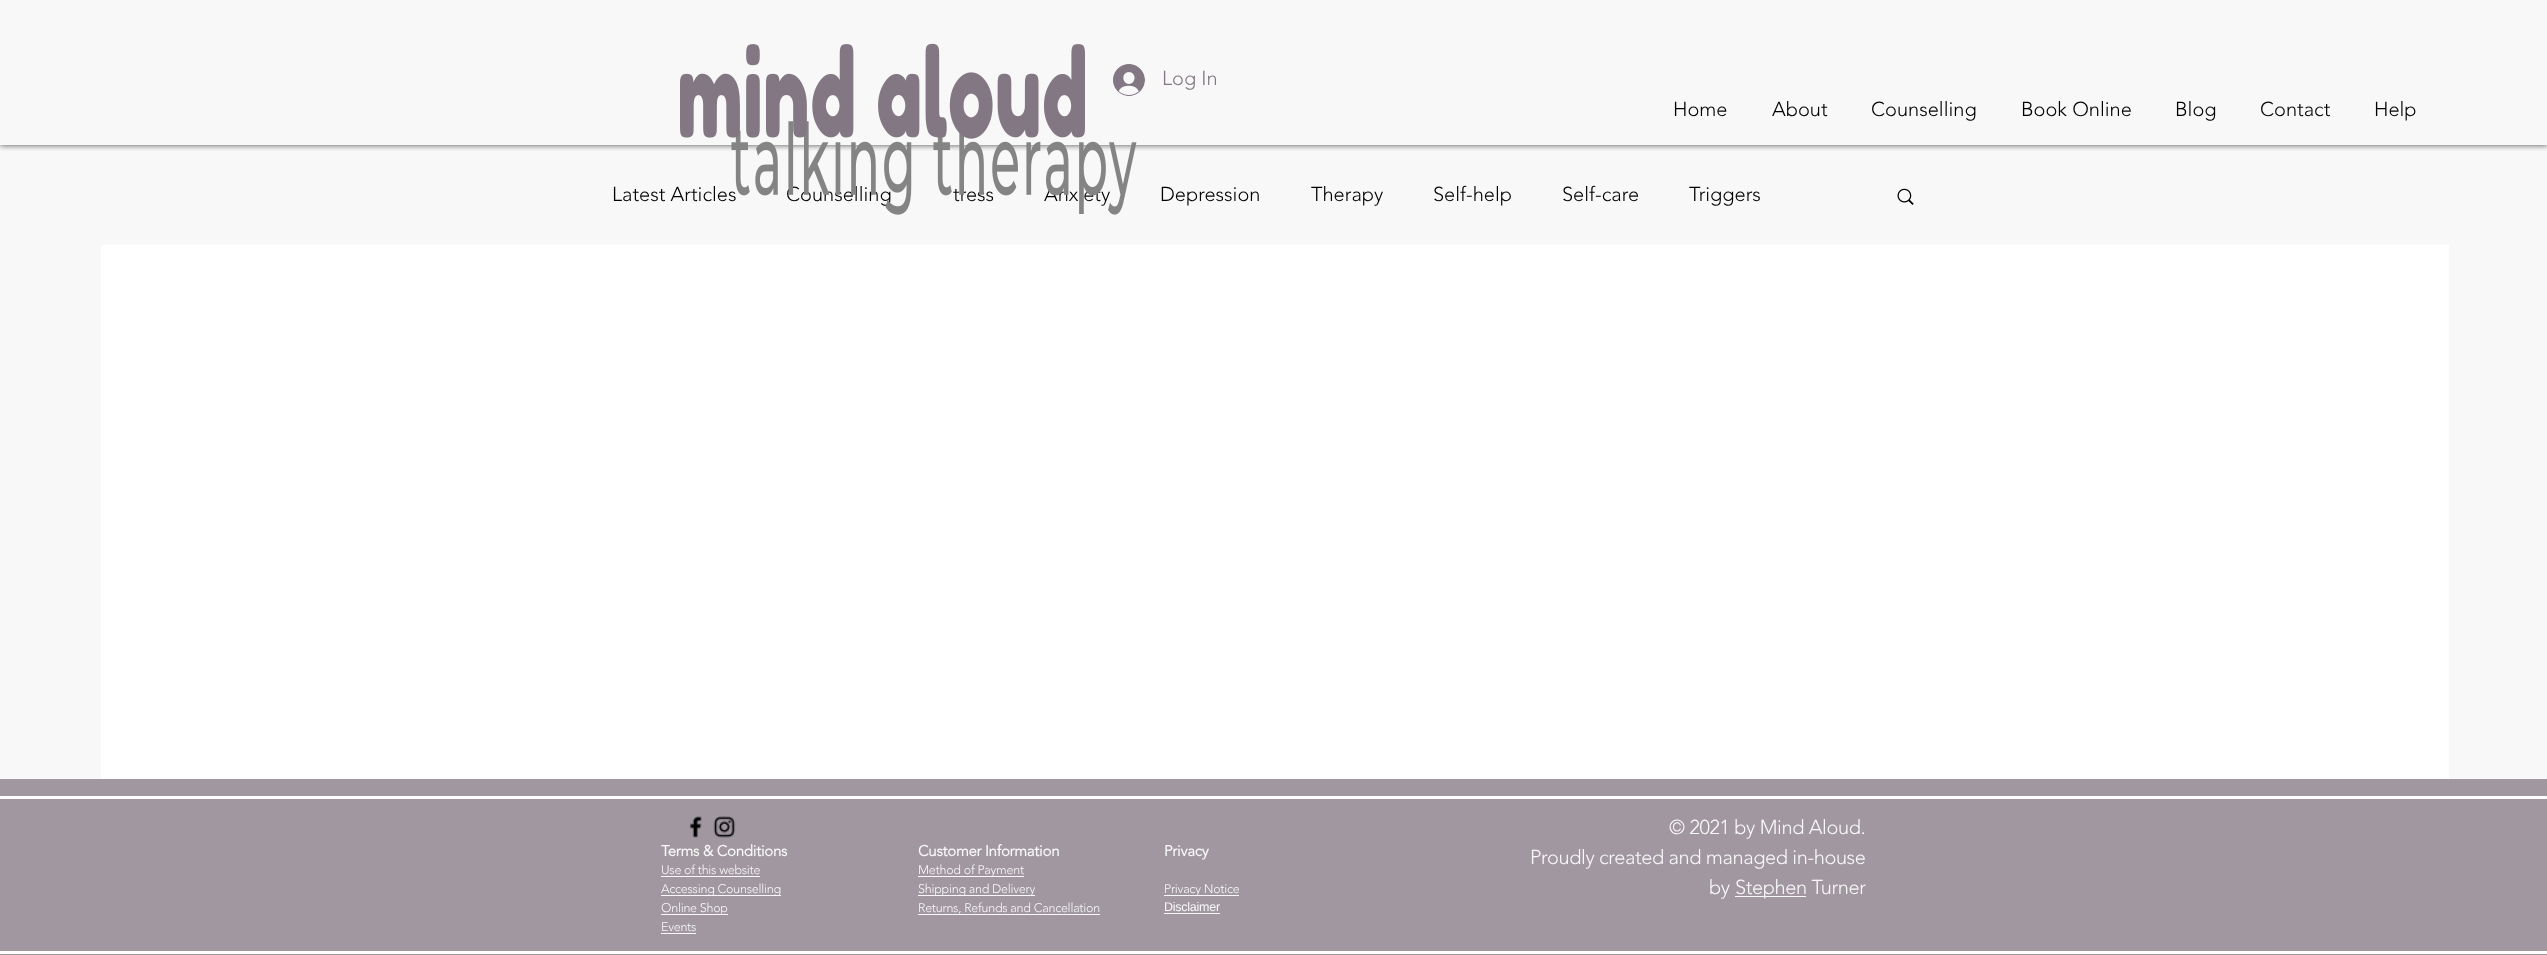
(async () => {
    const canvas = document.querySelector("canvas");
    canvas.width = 2547;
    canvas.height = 955;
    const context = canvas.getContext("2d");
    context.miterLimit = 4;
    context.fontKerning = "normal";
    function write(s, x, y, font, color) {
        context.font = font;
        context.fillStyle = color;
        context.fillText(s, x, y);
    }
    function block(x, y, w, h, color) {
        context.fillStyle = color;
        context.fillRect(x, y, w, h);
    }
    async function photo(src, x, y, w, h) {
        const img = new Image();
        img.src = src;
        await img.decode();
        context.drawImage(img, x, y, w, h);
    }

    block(0, 0, 2547, 955, "rgb(248, 248, 248)");
    context.save();
    context.beginPath();
    context.rect(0, 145, 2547, 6);
    context.clip();
    context.fillStyle = "rgba(0, 0, 0, 0.7)";
    context.filter = "blur(3px)";
    context.beginPath();
    context.rect(0, 0, 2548, 145);
    context.fill();
    context.filter = "none";
    context.restore();
    write("Latest Articles", 612, 201, "300 20px 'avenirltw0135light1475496'", "rgb(0, 0, 0)");
    write("Counselling", 786, 201, "300 20px 'avenirltw0135light1475496'", "rgb(0, 0, 0)");
    write("tress", 953, 201, "300 20px 'avenirltw0135light1475496'", "rgb(0, 0, 0)");
    write("Anxiety", 1044, 201, "300 20px 'avenirltw0135light1475496'", "rgb(0, 0, 0)");
    await photo("media/1.png", 680, 43, 457, 172);
    await photo("media/2.png", 1113, 64, 32, 32);
    write("Log In", 1162, 85, "300 20px 'avenirltw0135light1475496'", "rgb(130, 119, 130)");
    write("Home", 1673, 116, "300 20px 'avenirltw0135light1475496'", "rgb(0, 0, 0)");
    write("About", 1772, 116, "300 20px 'avenirltw0135light1475496'", "rgb(0, 0, 0)");
    write("Counselling", 1871, 116, "300 20px 'avenirltw0135light1475496'", "rgb(0, 0, 0)");
    write("Book Online", 2021, 116, "300 20px 'avenirltw0135light1475496'", "rgb(0, 0, 0)");
    write("Blog", 2175, 116, "300 20px 'avenirltw0135light1475496'", "rgb(0, 0, 0)");
    write("Contact", 2260, 116, "300 20px 'avenirltw0135light1475496'", "rgb(0, 0, 0)");
    write("Help", 2374, 116, "300 20px 'avenirltw0135light1475496'", "rgb(0, 0, 0)");
    block(101, 245, 2348, 534, "rgb(255, 255, 255)");
    write("Depression", 1160, 201, "300 20px 'avenirltw0135light1475496'", "rgb(0, 0, 0)");
    write("Therapy", 1311, 201, "300 20px 'avenirltw0135light1475496'", "rgb(0, 0, 0)");
    write("Self-help", 1433, 201, "300 20px 'avenirltw0135light1475496'", "rgb(0, 0, 0)");
    write("Self-care", 1562, 201, "300 20px 'avenirltw0135light1475496'", "rgb(0, 0, 0)");
    write("Triggers", 1689, 201, "300 20px 'avenirltw0135light1475496'", "rgb(0, 0, 0)");
    await photo("media/3.png", 1897, 188, 17, 17);
    block(0, 779, 2547, 176, "rgb(160, 151, 160)");
    block(0, 796, 2547, 3, "rgb(255, 255, 255)");
    block(0, 951, 2547, 3, "rgb(255, 255, 255)");
    await photo("media/4.png", 689, 816, 13, 22);
    await photo("media/5.png", 713, 816, 23, 22);
    context.letterSpacing = "-0.4px";
    write("© 2021 by Mind Aloud.", 1669, 834, "300 20px 'avenirltw0135light1475496'", "rgb(248, 248, 248)");
    write("Proudly created and managed in-house", 1530, 864, "300 20px 'avenirltw0135light1475496'", "rgb(248, 248, 248)");
    write("by", 1709, 894, "300 20px 'avenirltw0135light1475496'", "rgb(248, 248, 248)");
    block(1735, 896, 71, 1, "rgb(248, 248, 248)");
    write("Stephen Turner", 1735, 894, "300 20px 'avenirltw0135light1475496'", "rgb(248, 248, 248)");
    context.letterSpacing = "-0.25px";
    write("Terms & Conditions", 661, 856, "bold 15px 'avenirltw0135light1475496'", "rgb(248, 248, 248)");
    write("Use of this website", 661, 874, "300 12.5px 'avenirltw0135light1475496'", "rgb(248, 248, 248)");
    block(661, 876, 99, 1, "rgb(248, 248, 248)");
    block(661, 895, 120, 1, "rgb(248, 248, 248)");
    write("Accessing Counselling", 661, 893, "300 12.5px 'avenirltw0135light1475496'", "rgb(248, 248, 248)");
    block(661, 914, 67, 1, "rgb(248, 248, 248)");
    write("Online Shop", 661, 912, "300 12.5px 'avenirltw0135light1475496'", "rgb(248, 248, 248)");
    write("Events", 661, 931, "300 12.5px 'avenirltw0135light1475496'", "rgb(248, 248, 248)");
    block(661, 933, 35, 1, "rgb(248, 248, 248)");
    write("Customer Information", 918, 856, "bold 15px 'avenirltw0135light1475496'", "rgb(248, 248, 248)");
    block(918, 876, 106, 1, "rgb(248, 248, 248)");
    write("Method of Payment", 918, 874, "300 12.5px 'avenirltw0135light1475496'", "rgb(248, 248, 248)");
    block(918, 895, 117, 1, "rgb(248, 248, 248)");
    write("Shipping and Delivery", 918, 893, "300 12.5px 'avenirltw0135light1475496'", "rgb(248, 248, 248)");
    write("Returns, Refunds and Cancellation", 918, 912, "300 12.5px 'avenirltw0135light1475496'", "rgb(248, 248, 248)");
    block(918, 914, 182, 1, "rgb(248, 248, 248)");
    write("Privacy", 1164, 856, "bold 15px 'avenirltw0135light1475496'", "rgb(248, 248, 248)");
    block(1164, 895, 75, 1, "rgb(248, 248, 248)");
    write("Privacy Notice", 1164, 893, "300 12.5px 'avenirltw0135light1475496'", "rgb(248, 248, 248)");
    write("Disclaimer", 1164, 911, "12.5px Liberation Sans", "rgb(248, 248, 248)");
    block(1164, 913, 56, 1, "rgb(248, 248, 248)");
})();
